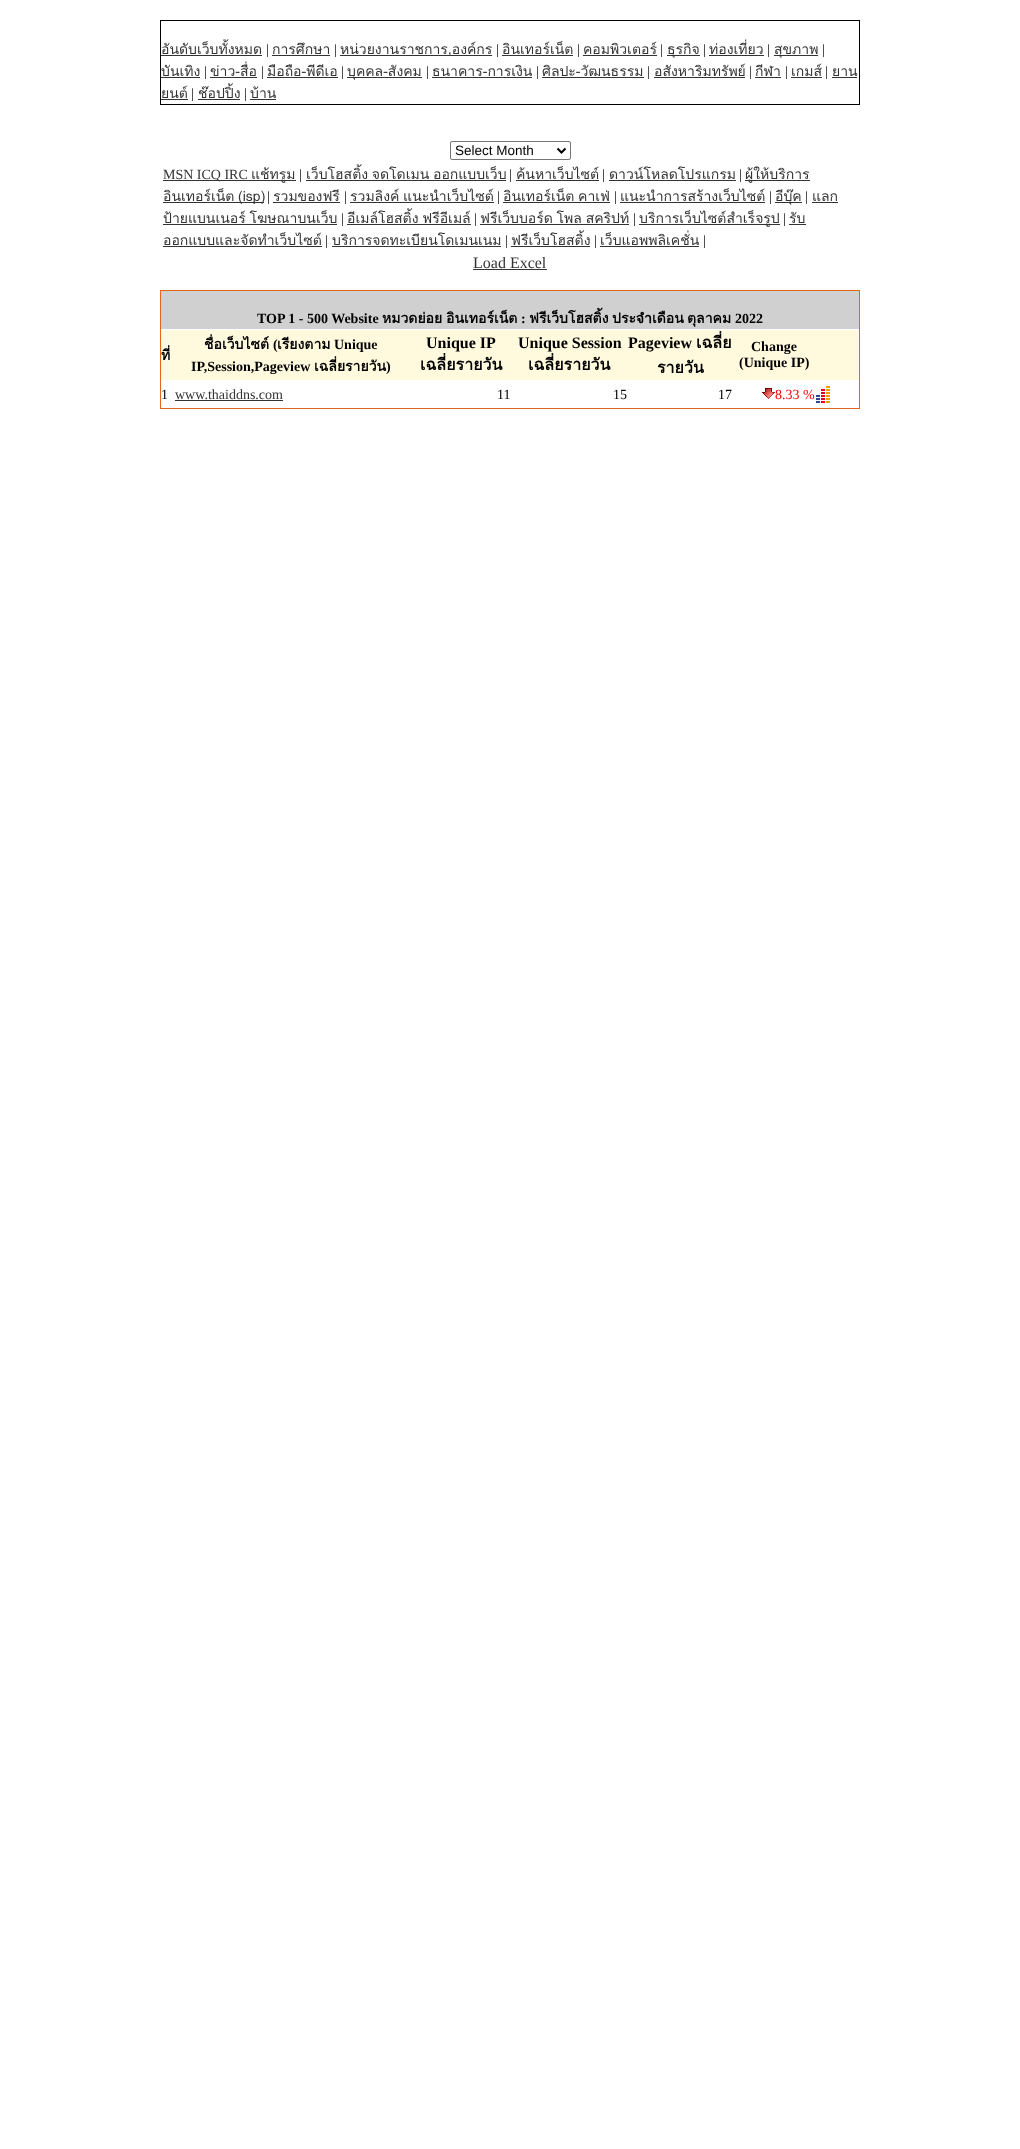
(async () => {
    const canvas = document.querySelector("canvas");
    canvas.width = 1020;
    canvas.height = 2149;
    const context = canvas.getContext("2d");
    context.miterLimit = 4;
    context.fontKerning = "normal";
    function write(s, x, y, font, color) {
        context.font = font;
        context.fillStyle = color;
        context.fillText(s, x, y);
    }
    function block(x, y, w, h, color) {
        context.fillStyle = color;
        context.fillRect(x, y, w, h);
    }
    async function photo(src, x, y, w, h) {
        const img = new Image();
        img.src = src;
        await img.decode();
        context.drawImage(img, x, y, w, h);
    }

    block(0, 0, 1020, 2149, "rgb(255, 255, 255)");
    block(160, 20, 700, 1, "rgb(0, 0, 0)");
    block(859, 20, 1, 85, "rgb(0, 0, 0)");
    block(160, 104, 700, 1, "rgb(0, 0, 0)");
    block(160, 20, 1, 85, "rgb(0, 0, 0)");
    write("อันดับเว็บทั้งหมด", 161, 54, "14px Loma", "rgb(51, 51, 51)");
    block(161, 55, 101, 1, "rgb(51, 51, 51)");
    write("|", 266, 54, "14px Liberation Serif", "rgb(0, 0, 0)");
    write("การศึกษา", 272, 54, "14px Loma", "rgb(51, 51, 51)");
    block(272, 55, 58, 1, "rgb(51, 51, 51)");
    write("|", 334, 54, "14px Liberation Serif", "rgb(0, 0, 0)");
    block(340, 55, 152, 1, "rgb(51, 51, 51)");
    write("หน่วยงานราชการ,องค์กร", 340, 54, "14px Loma", "rgb(51, 51, 51)");
    write("|", 496, 54, "14px Liberation Serif", "rgb(0, 0, 0)");
    write("อินเทอร์เน็ต", 502, 54, "14px Loma", "rgb(51, 51, 51)");
    block(502, 55, 71, 1, "rgb(51, 51, 51)");
    write("คอมพิวเตอร์", 583, 54, "14px Loma", "rgb(51, 51, 51)");
    block(583, 55, 74, 1, "rgb(51, 51, 51)");
    block(667, 55, 33, 1, "rgb(51, 51, 51)");
    write("ธุรกิจ", 667, 54, "14px Loma", "rgb(51, 51, 51)");
    write("ท่องเที่ยว", 709, 54, "14px Loma", "rgb(51, 51, 51)");
    block(709, 55, 55, 1, "rgb(51, 51, 51)");
    write("|", 577, 54, "14px Liberation Serif", "rgb(0, 0, 0)");
    write("|", 660, 54, "14px Liberation Serif", "rgb(0, 0, 0)");
    write("|", 703, 54, "14px Liberation Serif", "rgb(0, 0, 0)");
    write("|", 767, 54, "14px Liberation Serif", "rgb(0, 0, 0)");
    block(774, 55, 44, 1, "rgb(51, 51, 51)");
    write("สุขภาพ", 774, 54, "14px Loma", "rgb(51, 51, 51)");
    write("|", 822, 54, "14px Liberation Serif", "rgb(0, 0, 0)");
    write("บันเทิง", 161, 76, "14px Loma", "rgb(51, 51, 51)");
    block(161, 77, 39, 1, "rgb(51, 51, 51)");
    write("|", 204, 76, "14px Liberation Serif", "rgb(0, 0, 0)");
    write("ข่าว-สื่อ", 210, 76, "14px Loma", "rgb(51, 51, 51)");
    block(210, 77, 47, 1, "rgb(51, 51, 51)");
    write("|", 261, 76, "14px Liberation Serif", "rgb(0, 0, 0)");
    write("มือถือ-พีดีเอ", 267, 76, "14px Loma", "rgb(51, 51, 51)");
    block(267, 77, 71, 1, "rgb(51, 51, 51)");
    block(347, 77, 75, 1, "rgb(51, 51, 51)");
    write("บุคคล-สังคม", 347, 76, "14px Loma", "rgb(51, 51, 51)");
    write("ธนาคาร-การเงิน", 432, 76, "14px Loma", "rgb(51, 51, 51)");
    block(432, 77, 100, 1, "rgb(51, 51, 51)");
    write("|", 536, 76, "14px Liberation Serif", "rgb(0, 0, 0)");
    write("ศิลปะ-วัฒนธรรม", 542, 76, "14px Loma", "rgb(51, 51, 51)");
    block(542, 77, 102, 1, "rgb(51, 51, 51)");
    write("อสังหาริมทรัพย์", 654, 76, "14px Loma", "rgb(51, 51, 51)");
    block(654, 77, 91, 1, "rgb(51, 51, 51)");
    write("|", 749, 76, "14px Liberation Serif", "rgb(0, 0, 0)");
    write("กีฬา", 755, 76, "14px Loma", "rgb(51, 51, 51)");
    block(755, 77, 26, 1, "rgb(51, 51, 51)");
    write("เกมส์", 791, 76, "14px Loma", "rgb(51, 51, 51)");
    block(791, 77, 31, 1, "rgb(51, 51, 51)");
    write("|", 341, 76, "14px Liberation Serif", "rgb(0, 0, 0)");
    write("|", 426, 76, "14px Liberation Serif", "rgb(0, 0, 0)");
    write("|", 647, 76, "14px Liberation Serif", "rgb(0, 0, 0)");
    write("|", 785, 76, "14px Liberation Serif", "rgb(0, 0, 0)");
    write("|", 825, 76, "14px Liberation Serif", "rgb(0, 0, 0)");
    write("ยาน", 832, 76, "14px Loma", "rgb(51, 51, 51)");
    block(832, 77, 25, 1, "rgb(51, 51, 51)");
    write("ยนต์", 161, 98, "14px Loma", "rgb(51, 51, 51)");
    block(161, 99, 27, 1, "rgb(51, 51, 51)");
    write("|", 191, 98, "14px Liberation Serif", "rgb(0, 0, 0)");
    write("ช๊อปปิ้ง", 198, 98, "14px Loma", "rgb(51, 51, 51)");
    block(198, 99, 42, 1, "rgb(51, 51, 51)");
    write("|", 244, 98, "14px Liberation Serif", "rgb(0, 0, 0)");
    write("บ้าน", 250, 98, "14px Loma", "rgb(51, 51, 51)");
    block(250, 99, 26, 1, "rgb(51, 51, 51)");
    context.beginPath();
    context.roundRect(450.5, 141.5, 120, 18, 1.5);
    context.strokeStyle = "rgb(118, 118, 118)";
    context.stroke();
    context.beginPath();
    context.moveTo(557.5, 148.5);
    context.lineTo(561.5, 152.5);
    context.lineTo(565.5, 148.5);
    context.strokeStyle = "rgb(0, 0, 0)";
    context.lineWidth = 2;
    context.stroke();
    write("Select Month", 455, 155, "13.5px Liberation Sans", "rgb(0, 0, 0)");
    block(163, 180, 133, 1, "rgb(51, 51, 51)");
    write("MSN ICQ IRC", 163, 179, "14px Liberation Serif", "rgb(51, 51, 51)");
    write("แช้ทรูม", 251, 179, "14px Loma", "rgb(51, 51, 51)");
    write("|", 299, 179, "14px Liberation Serif", "rgb(0, 0, 0)");
    context.wordSpacing = "-1px";
    write("เว็บโฮสติ้ง จดโดเมน ออกแบบเว็บ", 306, 179, "14px Loma", "rgb(51, 51, 51)");
    block(306, 180, 200, 1, "rgb(51, 51, 51)");
    context.wordSpacing = "0px";
    write("|", 509, 179, "14px Liberation Serif", "rgb(0, 0, 0)");
    write("ค้นหาเว็บไซต์", 516, 179, "14px Loma", "rgb(51, 51, 51)");
    block(516, 180, 83, 1, "rgb(51, 51, 51)");
    write("ดาวน์โหลดโปรแกรม", 609, 179, "14px Loma", "rgb(51, 51, 51)");
    block(609, 180, 127, 1, "rgb(51, 51, 51)");
    block(745, 180, 65, 1, "rgb(51, 51, 51)");
    write("|", 739, 179, "14px Liberation Serif", "rgb(0, 0, 0)");
    write("ผู้ให้บริการ", 745, 179, "14px Loma", "rgb(51, 51, 51)");
    write("|", 602, 179, "14px Liberation Serif", "rgb(0, 0, 0)");
    block(163, 202, 101, 1, "rgb(51, 51, 51)");
    context.wordSpacing = "-1px";
    write("อินเทอร์เน็ต (isp)", 163, 201, "14px Loma", "rgb(51, 51, 51)");
    context.wordSpacing = "0px";
    write("|", 267, 201, "14px Liberation Serif", "rgb(0, 0, 0)");
    write("รวมของฟรี", 273, 201, "14px Loma", "rgb(51, 51, 51)");
    block(273, 202, 67, 1, "rgb(51, 51, 51)");
    write("|", 344, 201, "14px Liberation Serif", "rgb(0, 0, 0)");
    context.wordSpacing = "-1px";
    write("รวมลิงค์ แนะนำเว็บไซต์", 350, 201, "14px Loma", "rgb(51, 51, 51)");
    block(350, 202, 144, 1, "rgb(51, 51, 51)");
    context.wordSpacing = "0px";
    write("|", 497, 201, "14px Liberation Serif", "rgb(0, 0, 0)");
    context.wordSpacing = "-1px";
    write("อินเทอร์เน็ต คาเฟ่", 503, 201, "14px Loma", "rgb(51, 51, 51)");
    block(503, 202, 107, 1, "rgb(51, 51, 51)");
    context.wordSpacing = "0px";
    write("แนะนำการสร้างเว็บไซต์", 620, 201, "14px Loma", "rgb(51, 51, 51)");
    block(620, 202, 145, 1, "rgb(51, 51, 51)");
    block(775, 202, 27, 1, "rgb(51, 51, 51)");
    write("|", 769, 201, "14px Liberation Serif", "rgb(0, 0, 0)");
    write("อีบุ๊ค", 775, 201, "14px Loma", "rgb(51, 51, 51)");
    write("|", 614, 201, "14px Liberation Serif", "rgb(0, 0, 0)");
    write("|", 805, 201, "14px Liberation Serif", "rgb(0, 0, 0)");
    write("แลก", 812, 201, "14px Loma", "rgb(51, 51, 51)");
    block(812, 202, 26, 1, "rgb(51, 51, 51)");
    context.wordSpacing = "-1px";
    write("ป้ายแบนเนอร์ โฆษณาบนเว็บ", 163, 223, "14px Loma", "rgb(51, 51, 51)");
    block(163, 224, 174, 1, "rgb(51, 51, 51)");
    context.wordSpacing = "0px";
    write("|", 341, 223, "14px Liberation Serif", "rgb(0, 0, 0)");
    context.wordSpacing = "-1px";
    write("อีเมล์โฮสติ้ง ฟรีอีเมล์", 347, 223, "14px Loma", "rgb(51, 51, 51)");
    block(347, 224, 124, 1, "rgb(51, 51, 51)");
    write("ฟรีเว็บบอร์ด โพล สคริปท์", 480, 223, "14px Loma", "rgb(51, 51, 51)");
    block(480, 224, 149, 1, "rgb(51, 51, 51)");
    block(639, 224, 141, 1, "rgb(51, 51, 51)");
    context.wordSpacing = "0px";
    write("บริการเว็บไซต์สำเร็จรูป", 639, 223, "14px Loma", "rgb(51, 51, 51)");
    write("|", 783, 223, "14px Liberation Serif", "rgb(0, 0, 0)");
    write("รับ", 789, 223, "14px Loma", "rgb(51, 51, 51)");
    block(789, 224, 17, 1, "rgb(51, 51, 51)");
    write("|", 474, 223, "14px Liberation Serif", "rgb(0, 0, 0)");
    write("|", 633, 223, "14px Liberation Serif", "rgb(0, 0, 0)");
    write("ออกแบบและจัดทำเว็บไซต์", 163, 245, "14px Loma", "rgb(51, 51, 51)");
    block(163, 246, 159, 1, "rgb(51, 51, 51)");
    write("|", 325, 245, "14px Liberation Serif", "rgb(0, 0, 0)");
    write("บริการจดทะเบียนโดเมนเนม", 332, 245, "14px Loma", "rgb(51, 51, 51)");
    block(332, 246, 169, 1, "rgb(51, 51, 51)");
    write("|", 505, 245, "14px Liberation Serif", "rgb(0, 0, 0)");
    write("ฟรีเว็บโฮสติ้ง", 511, 245, "14px Loma", "rgb(51, 51, 51)");
    block(511, 246, 79, 1, "rgb(51, 51, 51)");
    write("|", 594, 245, "14px Liberation Serif", "rgb(0, 0, 0)");
    write("เว็บแอพพลิเคชั่น", 600, 245, "14px Loma", "rgb(51, 51, 51)");
    block(600, 246, 99, 1, "rgb(51, 51, 51)");
    write("|", 703, 245, "14px Liberation Serif", "rgb(0, 0, 0)");
    write("Load Excel", 473, 268, "16px Liberation Serif", "rgb(51, 51, 51)");
    block(473, 269, 74, 1, "rgb(51, 51, 51)");
    block(160, 290, 700, 119, "rgb(231, 101, 26)");
    block(161, 329, 698, 79, "rgb(255, 255, 255)");
    block(161, 291, 698, 38, "rgb(208, 208, 208)");
    write("TOP 1 - 500 Website", 257, 323, "bold 14px Liberation Serif", "rgb(0, 0, 0)");
    write("หมวดย่อย", 382, 323, "bold 14px Loma", "rgb(0, 0, 0)");
    write("อินเทอร์เน็ต", 446, 323, "bold 14px Loma", "rgb(0, 0, 0)");
    write(":", 521, 323, "bold 14px Liberation Serif", "rgb(0, 0, 0)");
    write("ฟรีเว็บโฮสติ้ง", 529, 323, "bold 14px Loma", "rgb(0, 0, 0)");
    write("ประจำเดือน", 612, 323, "bold 14px Loma", "rgb(0, 0, 0)");
    write("ตุลาคม", 687, 323, "bold 14px Loma", "rgb(0, 0, 0)");
    write("2022", 735, 323, "bold 14px Liberation Serif", "rgb(0, 0, 0)");
    block(161, 330, 698, 50, "rgb(255, 249, 221)");
    write("ที่", 161, 360, "bold 14px Loma", "rgb(0, 0, 0)");
    write("ชื่อเว็บไซต์", 204, 349, "bold 14px Loma", "rgb(0, 0, 0)");
    write("(", 273, 349, "bold 14px Liberation Serif", "rgb(0, 0, 0)");
    write("เรียงตาม", 277, 349, "bold 14px Loma", "rgb(0, 0, 0)");
    write("Unique", 334, 349, "bold 14px Liberation Serif", "rgb(0, 0, 0)");
    write("IP,Session,Pageview", 191, 371, "bold 14px Liberation Serif", "rgb(0, 0, 0)");
    write("เฉลี่ยรายวัน", 314, 371, "bold 14px Loma", "rgb(0, 0, 0)");
    write(")", 386, 371, "bold 14px Liberation Serif", "rgb(0, 0, 0)");
    write("Unique IP", 426, 348, "bold 16px Liberation Serif", "rgb(0, 0, 0)");
    write("เฉลี่ยรายวัน", 420, 370, "bold 16px Loma", "rgb(0, 0, 0)");
    write("Unique Session", 518, 348, "bold 16px Liberation Serif", "rgb(0, 0, 0)");
    write("เฉลี่ยรายวัน", 528, 370, "bold 16px Loma", "rgb(0, 0, 0)");
    write("Pageview", 628, 348, "bold 16px Liberation Serif", "rgb(0, 0, 0)");
    write("เฉลี่ย", 696, 348, "bold 16px Loma", "rgb(0, 0, 0)");
    write("รายวัน", 657, 373, "bold 16px Loma", "rgb(0, 0, 0)");
    write("Change", 751, 351, "bold 14px Liberation Serif", "rgb(0, 0, 0)");
    write("(Unique IP)", 739, 367, "bold 14px Liberation Serif", "rgb(0, 0, 0)");
    write("1", 161, 399, "14px Liberation Serif", "rgb(0, 0, 0)");
    write("www.thaiddns.com", 175, 399, "14px Liberation Serif", "rgb(51, 51, 51)");
    block(175, 400, 108, 1, "rgb(51, 51, 51)");
    write("11", 497, 399, "14px Liberation Serif", "rgb(0, 0, 0)");
    write("15", 613, 399, "14px Liberation Serif", "rgb(0, 0, 0)");
    write("17", 718, 399, "14px Liberation Serif", "rgb(0, 0, 0)");
    await photo("media/1.png", 762, 388, 13, 11);
    write("8.33 %", 775, 399, "14px Liberation Serif", "rgb(255, 0, 0)");
    await photo("media/2.png", 816, 386, 14, 17);
})();
